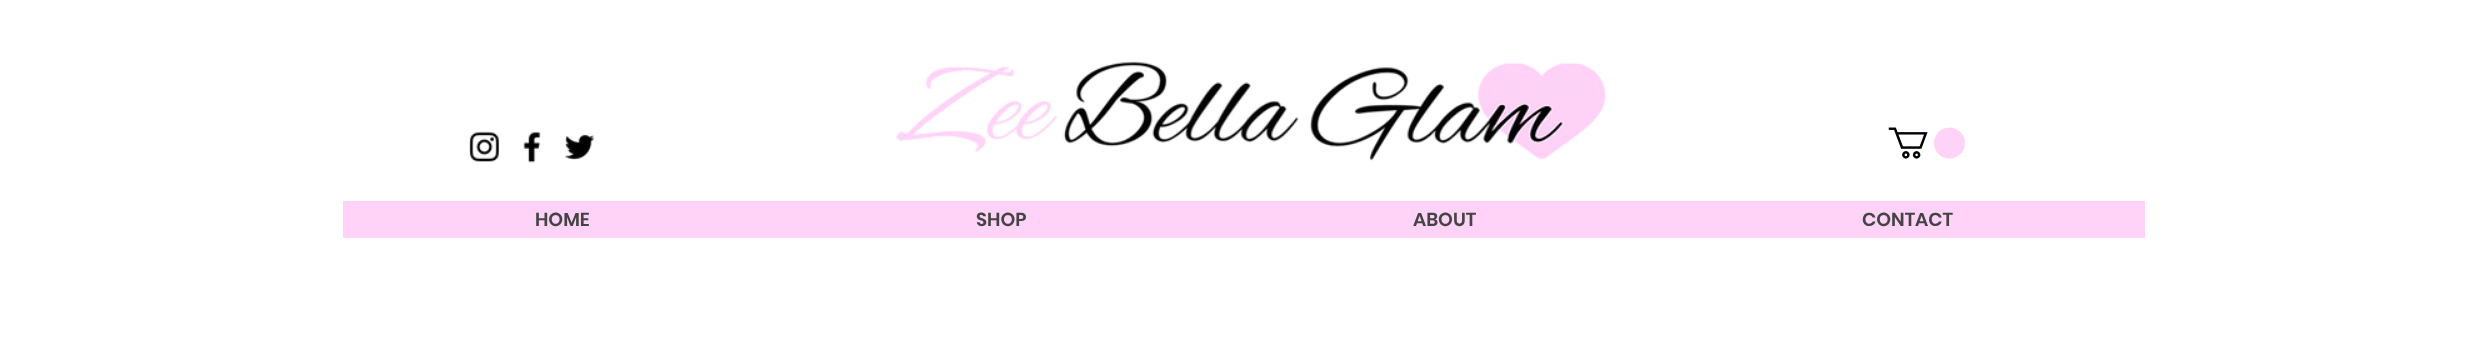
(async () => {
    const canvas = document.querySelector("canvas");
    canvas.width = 2492;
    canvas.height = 353;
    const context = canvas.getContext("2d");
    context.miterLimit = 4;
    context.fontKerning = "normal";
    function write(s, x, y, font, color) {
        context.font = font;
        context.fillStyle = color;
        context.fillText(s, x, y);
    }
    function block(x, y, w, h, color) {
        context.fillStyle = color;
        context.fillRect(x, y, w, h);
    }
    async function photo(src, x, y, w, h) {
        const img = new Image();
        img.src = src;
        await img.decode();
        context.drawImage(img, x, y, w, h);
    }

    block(0, 0, 2492, 353, "rgb(255, 255, 255)");
    await photo("media/1.png", 469, 131, 31, 31);
    await photo("media/2.png", 523, 131, 18, 32);
    await photo("media/3.png", 565, 134, 30, 26);
    await photo("media/4.png", 896, 61, 711, 100);
    await photo("media/5.png", 1888, 127, 77, 32);
    block(343, 201, 1802, 37, "rgb(255, 210, 247)");
    write("HOME", 535, 226, "600 18.75px Poppins", "rgb(68, 68, 68)");
    write("SHOP", 976, 226, "600 18.75px Poppins", "rgb(68, 68, 68)");
    write("ABOUT", 1413, 226, "600 18.75px Poppins", "rgb(68, 68, 68)");
    write("CONTACT", 1862, 226, "600 18.75px Poppins", "rgb(68, 68, 68)");
})();
